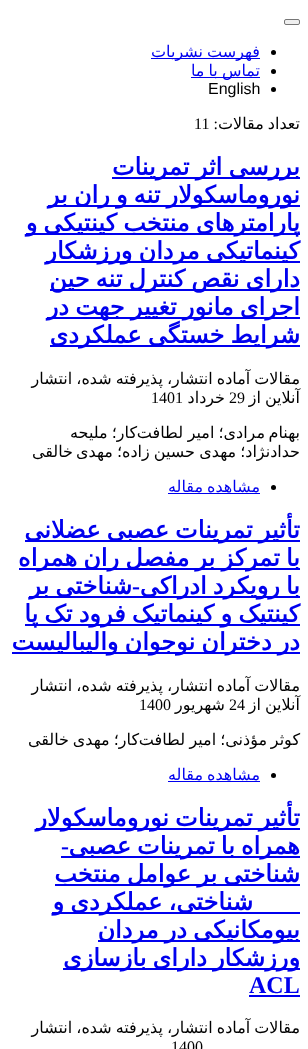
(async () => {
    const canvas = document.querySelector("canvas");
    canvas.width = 308;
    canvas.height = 1049;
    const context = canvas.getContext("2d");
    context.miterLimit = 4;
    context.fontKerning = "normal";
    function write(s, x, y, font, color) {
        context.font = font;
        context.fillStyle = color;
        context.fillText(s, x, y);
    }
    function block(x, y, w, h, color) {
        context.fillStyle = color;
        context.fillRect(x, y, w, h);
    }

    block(0, 0, 308, 1049, "rgb(255, 255, 255)");
    context.fillStyle = "rgb(239, 239, 239)";
    context.beginPath();
    context.roundRect(284.5, 19.5, 15, 5, 1.5);
    context.fill();
    context.strokeStyle = "rgb(118, 118, 118)";
    context.stroke();
    context.fillStyle = "rgb(0, 0, 0)";
    context.beginPath();
    context.arc(273.5, 52.5, 2.5, 0, Math.PI * 2);
    context.fill();
    block(151, 58, 109, 1, "rgb(0, 0, 238)");
    context.wordSpacing = "-1px";
    context.direction = "rtl";
    write("فهرست نشریات", 260, 57, "16px DejaVu Sans", "rgb(0, 0, 238)");
    context.fillStyle = "rgb(0, 0, 0)";
    context.beginPath();
    context.arc(273.5, 71.5, 2.5, 0, Math.PI * 2);
    context.fill();
    block(191, 77, 69, 1, "rgb(0, 0, 238)");
    write("تماس با ما", 260, 76, "16px DejaVu Sans", "rgb(0, 0, 238)");
    context.fillStyle = "rgb(0, 0, 0)";
    context.beginPath();
    context.arc(273.5, 89.5, 2.5, 0, Math.PI * 2);
    context.fill();
    context.wordSpacing = "0px";
    context.direction = "ltr";
    write("English", 208, 94, "16px Liberation Sans", "rgb(0, 0, 0)");
    context.wordSpacing = "-1px";
    context.direction = "rtl";
    write("تعداد مقالات", 300, 129, "16px DejaVu Sans", "rgb(0, 0, 0)");
    context.wordSpacing = "0px";
    write(":", 218, 129, "16px Liberation Serif", "rgb(0, 0, 0)");
    context.direction = "ltr";
    write("11", 194, 129, "16px Liberation Serif", "rgb(0, 0, 0)");
    block(112, 177, 188, 2, "rgb(0, 0, 238)");
    context.wordSpacing = "-1.5px";
    context.direction = "rtl";
    write("بررسی اثر تمرینات", 300, 175, "bold 24px DejaVu Sans", "rgb(0, 0, 238)");
    block(48, 205, 252, 2, "rgb(0, 0, 238)");
    write("نوروماسکولار تنه و ران بر", 300, 203, "bold 24px DejaVu Sans", "rgb(0, 0, 238)");
    block(26, 233, 274, 2, "rgb(0, 0, 238)");
    write("پارامترهای منتخب کینتیکی و", 300, 231, "bold 24px DejaVu Sans", "rgb(0, 0, 238)");
    block(46, 261, 254, 2, "rgb(0, 0, 238)");
    write("کینماتیکی مردان ورزشکار", 300, 259, "bold 24px DejaVu Sans", "rgb(0, 0, 238)");
    block(50, 289, 250, 2, "rgb(0, 0, 238)");
    write("دارای نقص کنترل تنه حین", 300, 287, "bold 24px DejaVu Sans", "rgb(0, 0, 238)");
    block(47, 317, 253, 2, "rgb(0, 0, 238)");
    write("اجرای مانور تغییر جهت در", 300, 315, "bold 24px DejaVu Sans", "rgb(0, 0, 238)");
    block(50, 345, 250, 2, "rgb(0, 0, 238)");
    write("شرایط خستگی عملکردی", 300, 343, "bold 24px DejaVu Sans", "rgb(0, 0, 238)");
    context.wordSpacing = "-1px";
    write("مقالات آماده انتشار، پذیرفته شده، انتشار", 300, 384, "16px DejaVu Sans", "rgb(0, 0, 0)");
    write("آنلاین از", 300, 403, "16px DejaVu Sans", "rgb(0, 0, 0)");
    context.wordSpacing = "0px";
    context.direction = "ltr";
    write("29", 229, 403, "16px Liberation Serif", "rgb(0, 0, 0)");
    context.direction = "rtl";
    write("خرداد", 225, 403, "16px DejaVu Sans", "rgb(0, 0, 0)");
    context.direction = "ltr";
    write("1401", 151, 403, "16px Liberation Serif", "rgb(0, 0, 0)");
    context.direction = "rtl";
    write("بهنام", 300, 438, "16px DejaVu Sans", "rgb(0, 0, 0)");
    context.wordSpacing = "-1px";
    write("مرادی؛ امیر", 265, 438, "16px DejaVu Sans", "rgb(0, 0, 0)");
    write("کار؛ ملیحه", 137, 438, "16px DejaVu Sans", "rgb(0, 0, 0)");
    context.wordSpacing = "0px";
    write("لطافت", 183, 438, "16px DejaVu Sans", "rgb(0, 0, 0)");
    context.wordSpacing = "-1px";
    write("حدادنژاد؛ مهدی", 300, 457, "16px DejaVu Sans", "rgb(0, 0, 0)");
    write("حسین زاده؛ مهدی", 195, 457, "16px DejaVu Sans", "rgb(0, 0, 0)");
    context.wordSpacing = "0px";
    write("خالقی", 73, 457, "16px DejaVu Sans", "rgb(0, 0, 0)");
    context.beginPath();
    context.arc(273.5, 487.5, 2.5, 0, Math.PI * 2);
    context.fill();
    context.wordSpacing = "-1px";
    write("مشاهده مقاله", 260, 492, "16px DejaVu Sans", "rgb(0, 0, 238)");
    block(168, 493, 92, 1, "rgb(0, 0, 238)");
    block(25, 540, 275, 2, "rgb(0, 0, 238)");
    context.wordSpacing = "-1.5px";
    write("تأثیر تمرینات عصبی عضلانی", 300, 538, "bold 24px DejaVu Sans", "rgb(0, 0, 238)");
    block(19, 568, 281, 2, "rgb(0, 0, 238)");
    write("با تمرکز بر مفصل ران همراه", 300, 566, "bold 24px DejaVu Sans", "rgb(0, 0, 238)");
    block(29, 596, 271, 2, "rgb(0, 0, 238)");
    write("با رویکرد ادراکی", 300, 594, "bold 24px DejaVu Sans", "rgb(0, 0, 238)");
    context.wordSpacing = "0px";
    write("-", 140, 594, "bold 24px Liberation Serif", "rgb(0, 0, 238)");
    context.wordSpacing = "-1.5px";
    write("شناختی بر", 132, 594, "bold 24px DejaVu Sans", "rgb(0, 0, 238)");
    block(25, 624, 275, 2, "rgb(0, 0, 238)");
    write("کینتیک و کینماتیک فرود تک پا", 300, 622, "bold 24px DejaVu Sans", "rgb(0, 0, 238)");
    block(12, 652, 288, 2, "rgb(0, 0, 238)");
    write("در دختران نوجوان والیبالیست", 300, 650, "bold 24px DejaVu Sans", "rgb(0, 0, 238)");
    context.wordSpacing = "-1px";
    write("مقالات آماده انتشار، پذیرفته شده، انتشار", 300, 691, "16px DejaVu Sans", "rgb(0, 0, 0)");
    write("آنلاین از", 300, 710, "16px DejaVu Sans", "rgb(0, 0, 0)");
    context.wordSpacing = "0px";
    context.direction = "ltr";
    write("24", 229, 710, "16px Liberation Serif", "rgb(0, 0, 0)");
    context.direction = "rtl";
    write("شهریور", 225, 710, "16px DejaVu Sans", "rgb(0, 0, 0)");
    context.direction = "ltr";
    write("1400", 139, 710, "16px Liberation Serif", "rgb(0, 0, 0)");
    context.direction = "rtl";
    write("کوثر", 300, 745, "16px DejaVu Sans", "rgb(0, 0, 0)");
    context.wordSpacing = "-1px";
    write("مؤذنی؛ امیر", 267, 745, "16px DejaVu Sans", "rgb(0, 0, 0)");
    write("کار؛ مهدی", 139, 745, "16px DejaVu Sans", "rgb(0, 0, 0)");
    context.wordSpacing = "0px";
    write("لطافت", 185, 745, "16px DejaVu Sans", "rgb(0, 0, 0)");
    write("خالقی", 69, 745, "16px DejaVu Sans", "rgb(0, 0, 0)");
    context.beginPath();
    context.arc(273.5, 775.5, 2.5, 0, Math.PI * 2);
    context.fill();
    context.wordSpacing = "-1px";
    write("مشاهده مقاله", 260, 780, "16px DejaVu Sans", "rgb(0, 0, 238)");
    block(168, 781, 92, 1, "rgb(0, 0, 238)");
    block(36, 828, 264, 2, "rgb(0, 0, 238)");
    context.wordSpacing = "-1.5px";
    write("تأثیر تمرینات نوروماسکولار", 300, 826, "bold 24px DejaVu Sans", "rgb(0, 0, 238)");
    block(61, 856, 239, 2, "rgb(0, 0, 238)");
    write("همراه با تمرینات عصبی", 300, 854, "bold 24px DejaVu Sans", "rgb(0, 0, 238)");
    context.wordSpacing = "0px";
    write("-", 69, 854, "bold 24px Liberation Serif", "rgb(0, 0, 238)");
    block(55, 884, 245, 2, "rgb(0, 0, 238)");
    context.wordSpacing = "-1.5px";
    write("شناختی بر عوامل منتخب", 300, 882, "bold 24px DejaVu Sans", "rgb(0, 0, 238)");
    block(52, 912, 248, 2, "rgb(0, 0, 238)");
    write("شناختی، عملکردی و", 253, 910, "bold 24px DejaVu Sans", "rgb(0, 0, 238)");
    block(98, 940, 202, 2, "rgb(0, 0, 238)");
    write("بیومکانیکی در مردان", 300, 938, "bold 24px DejaVu Sans", "rgb(0, 0, 238)");
    block(63, 968, 237, 2, "rgb(0, 0, 238)");
    write("ورزشکار دارای بازسازی", 300, 966, "bold 24px DejaVu Sans", "rgb(0, 0, 238)");
    context.wordSpacing = "0px";
    context.direction = "ltr";
    write("ACL", 249, 993, "bold 24px Liberation Serif", "rgb(0, 0, 238)");
    block(249, 995, 51, 2, "rgb(0, 0, 238)");
    context.wordSpacing = "-1px";
    context.direction = "rtl";
    write("مقالات آماده انتشار، پذیرفته شده، انتشار", 300, 1033, "16px DejaVu Sans", "rgb(0, 0, 0)");
    context.wordSpacing = "0px";
    context.direction = "ltr";
    write("1400", 171, 1052, "16px Liberation Serif", "rgb(0, 0, 0)");
})();
